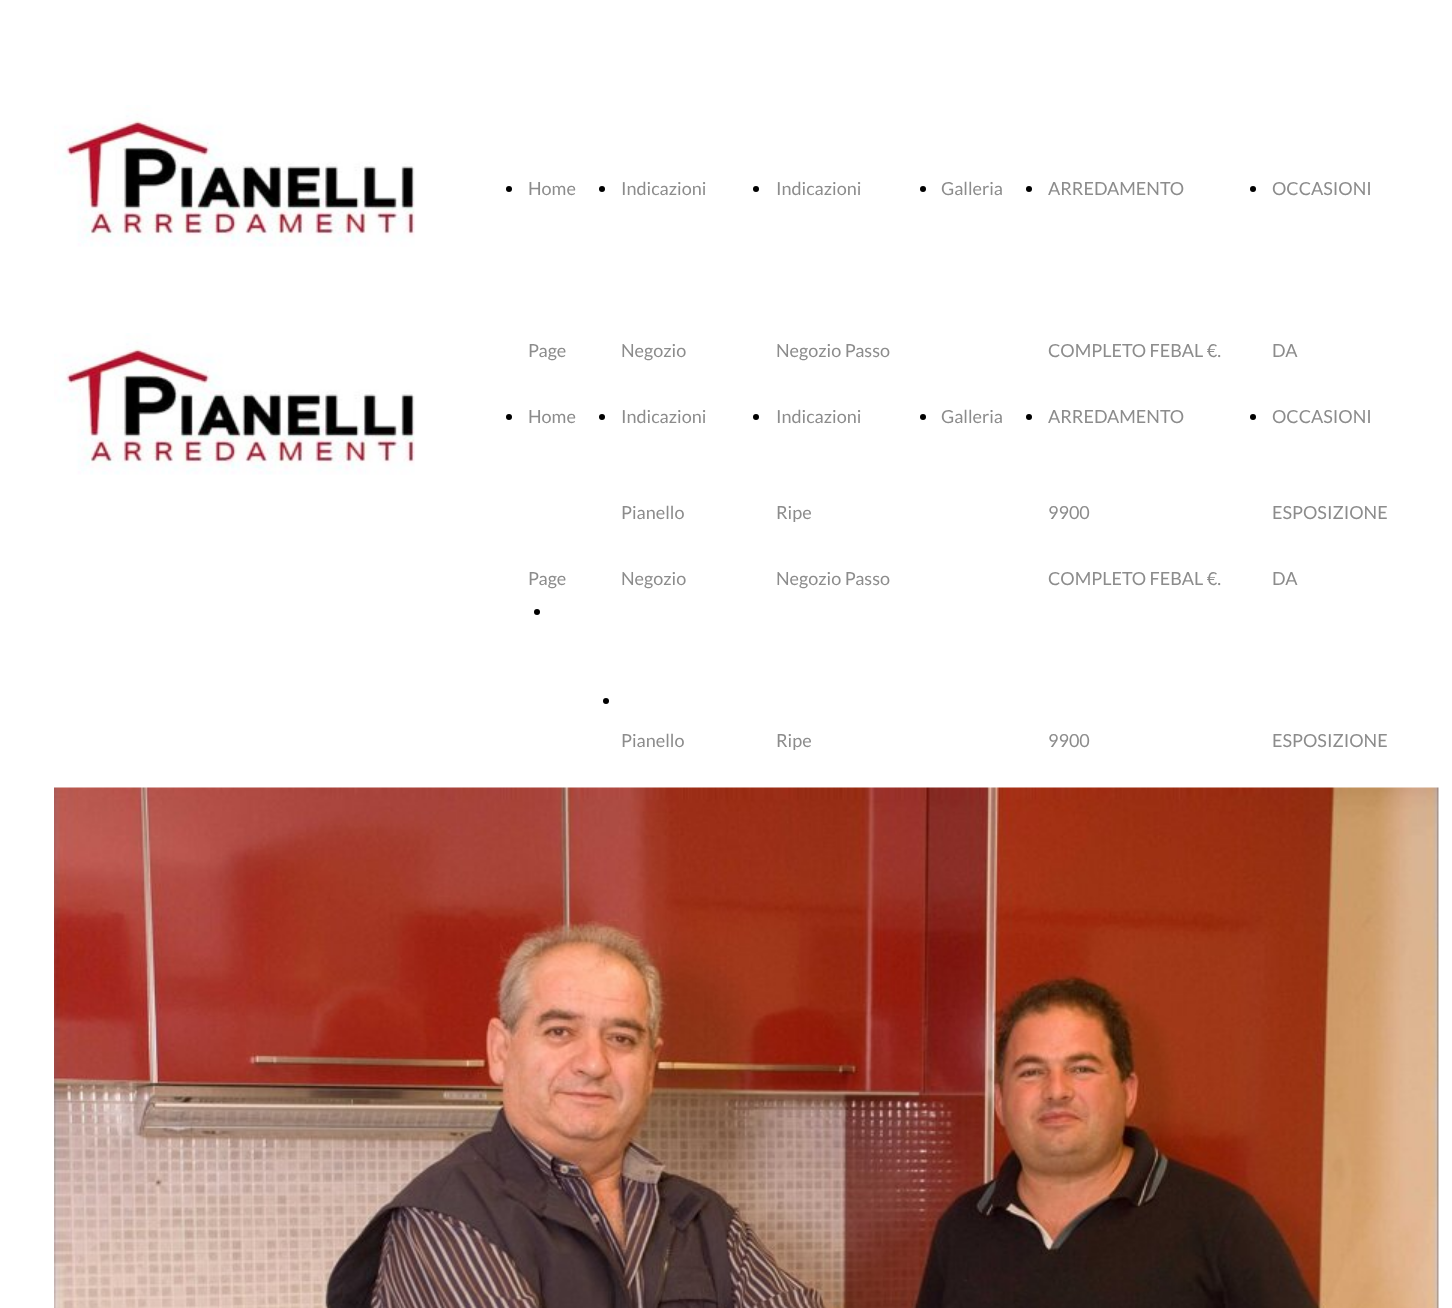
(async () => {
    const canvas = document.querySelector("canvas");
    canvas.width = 1452;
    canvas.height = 1308;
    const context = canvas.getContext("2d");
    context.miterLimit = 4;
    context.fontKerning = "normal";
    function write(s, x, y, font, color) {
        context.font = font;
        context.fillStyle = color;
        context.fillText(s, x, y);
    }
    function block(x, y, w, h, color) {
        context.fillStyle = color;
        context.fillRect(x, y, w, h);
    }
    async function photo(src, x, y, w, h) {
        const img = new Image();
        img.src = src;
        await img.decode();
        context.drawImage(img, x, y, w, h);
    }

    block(0, 0, 1452, 1308, "rgb(255, 255, 255)");
    await photo("media/1.png", 54, 105, 361, 142);
    context.fillStyle = "rgb(0, 0, 0)";
    context.beginPath();
    context.arc(509, 189, 3, 0, Math.PI * 2);
    context.fill();
    write("Home", 528, 195, "18px Lato", "rgb(140, 140, 140)");
    write("Page", 528, 357, "18px Lato", "rgb(140, 140, 140)");
    context.fillStyle = "rgb(0, 0, 0)";
    context.beginPath();
    context.arc(602, 189, 3, 0, Math.PI * 2);
    context.fill();
    write("Indicazioni", 621, 195, "18px Lato", "rgb(140, 140, 140)");
    write("Negozio", 621, 357, "18px Lato", "rgb(140, 140, 140)");
    write("Pianello", 621, 519, "18px Lato", "rgb(140, 140, 140)");
    context.fillStyle = "rgb(0, 0, 0)";
    context.beginPath();
    context.arc(756, 189, 3, 0, Math.PI * 2);
    context.fill();
    write("Indicazioni", 776, 195, "18px Lato", "rgb(140, 140, 140)");
    write("Negozio Passo", 776, 357, "18px Lato", "rgb(140, 140, 140)");
    write("Ripe", 776, 519, "18px Lato", "rgb(140, 140, 140)");
    context.fillStyle = "rgb(0, 0, 0)";
    context.beginPath();
    context.arc(923, 189, 3, 0, Math.PI * 2);
    context.fill();
    write("Galleria", 941, 195, "18px Lato", "rgb(140, 140, 140)");
    context.fillStyle = "rgb(0, 0, 0)";
    context.beginPath();
    context.arc(1029, 189, 3, 0, Math.PI * 2);
    context.fill();
    write("ARREDAMENTO", 1048, 195, "18px Lato", "rgb(140, 140, 140)");
    write("COMPLETO FEBAL €.", 1048, 357, "18px Lato", "rgb(140, 140, 140)");
    write("9900", 1048, 519, "18px Lato", "rgb(140, 140, 140)");
    context.fillStyle = "rgb(0, 0, 0)";
    context.beginPath();
    context.arc(1253, 189, 3, 0, Math.PI * 2);
    context.fill();
    write("OCCASIONI", 1272, 195, "18px Lato", "rgb(140, 140, 140)");
    write("DA", 1272, 357, "18px Lato", "rgb(140, 140, 140)");
    write("ESPOSIZIONE", 1272, 519, "18px Lato", "rgb(140, 140, 140)");
    await photo("media/1.png", 54, 333, 361, 142);
    context.fillStyle = "rgb(0, 0, 0)";
    context.beginPath();
    context.arc(509, 417, 3, 0, Math.PI * 2);
    context.fill();
    write("Home", 528, 423, "18px Lato", "rgb(140, 140, 140)");
    write("Page", 528, 585, "18px Lato", "rgb(140, 140, 140)");
    context.fillStyle = "rgb(0, 0, 0)";
    context.beginPath();
    context.arc(602, 417, 3, 0, Math.PI * 2);
    context.fill();
    write("Indicazioni", 621, 423, "18px Lato", "rgb(140, 140, 140)");
    write("Negozio", 621, 585, "18px Lato", "rgb(140, 140, 140)");
    write("Pianello", 621, 747, "18px Lato", "rgb(140, 140, 140)");
    context.fillStyle = "rgb(0, 0, 0)";
    context.beginPath();
    context.arc(756, 417, 3, 0, Math.PI * 2);
    context.fill();
    write("Indicazioni", 776, 423, "18px Lato", "rgb(140, 140, 140)");
    write("Negozio Passo", 776, 585, "18px Lato", "rgb(140, 140, 140)");
    write("Ripe", 776, 747, "18px Lato", "rgb(140, 140, 140)");
    context.fillStyle = "rgb(0, 0, 0)";
    context.beginPath();
    context.arc(923, 417, 3, 0, Math.PI * 2);
    context.fill();
    write("Galleria", 941, 423, "18px Lato", "rgb(140, 140, 140)");
    context.fillStyle = "rgb(0, 0, 0)";
    context.beginPath();
    context.arc(1029, 417, 3, 0, Math.PI * 2);
    context.fill();
    write("ARREDAMENTO", 1048, 423, "18px Lato", "rgb(140, 140, 140)");
    write("COMPLETO FEBAL €.", 1048, 585, "18px Lato", "rgb(140, 140, 140)");
    write("9900", 1048, 747, "18px Lato", "rgb(140, 140, 140)");
    context.fillStyle = "rgb(0, 0, 0)";
    context.beginPath();
    context.arc(1253, 417, 3, 0, Math.PI * 2);
    context.fill();
    write("OCCASIONI", 1272, 423, "18px Lato", "rgb(140, 140, 140)");
    write("DA", 1272, 585, "18px Lato", "rgb(140, 140, 140)");
    write("ESPOSIZIONE", 1272, 747, "18px Lato", "rgb(140, 140, 140)");
    context.fillStyle = "rgb(0, 0, 0)";
    context.beginPath();
    context.arc(537, 612, 3, 0, Math.PI * 2);
    context.fill();
    context.beginPath();
    context.arc(606, 701, 3, 0, Math.PI * 2);
    context.fill();
    await photo("media/2.png", 54, 787, 1385, 521);
})();
